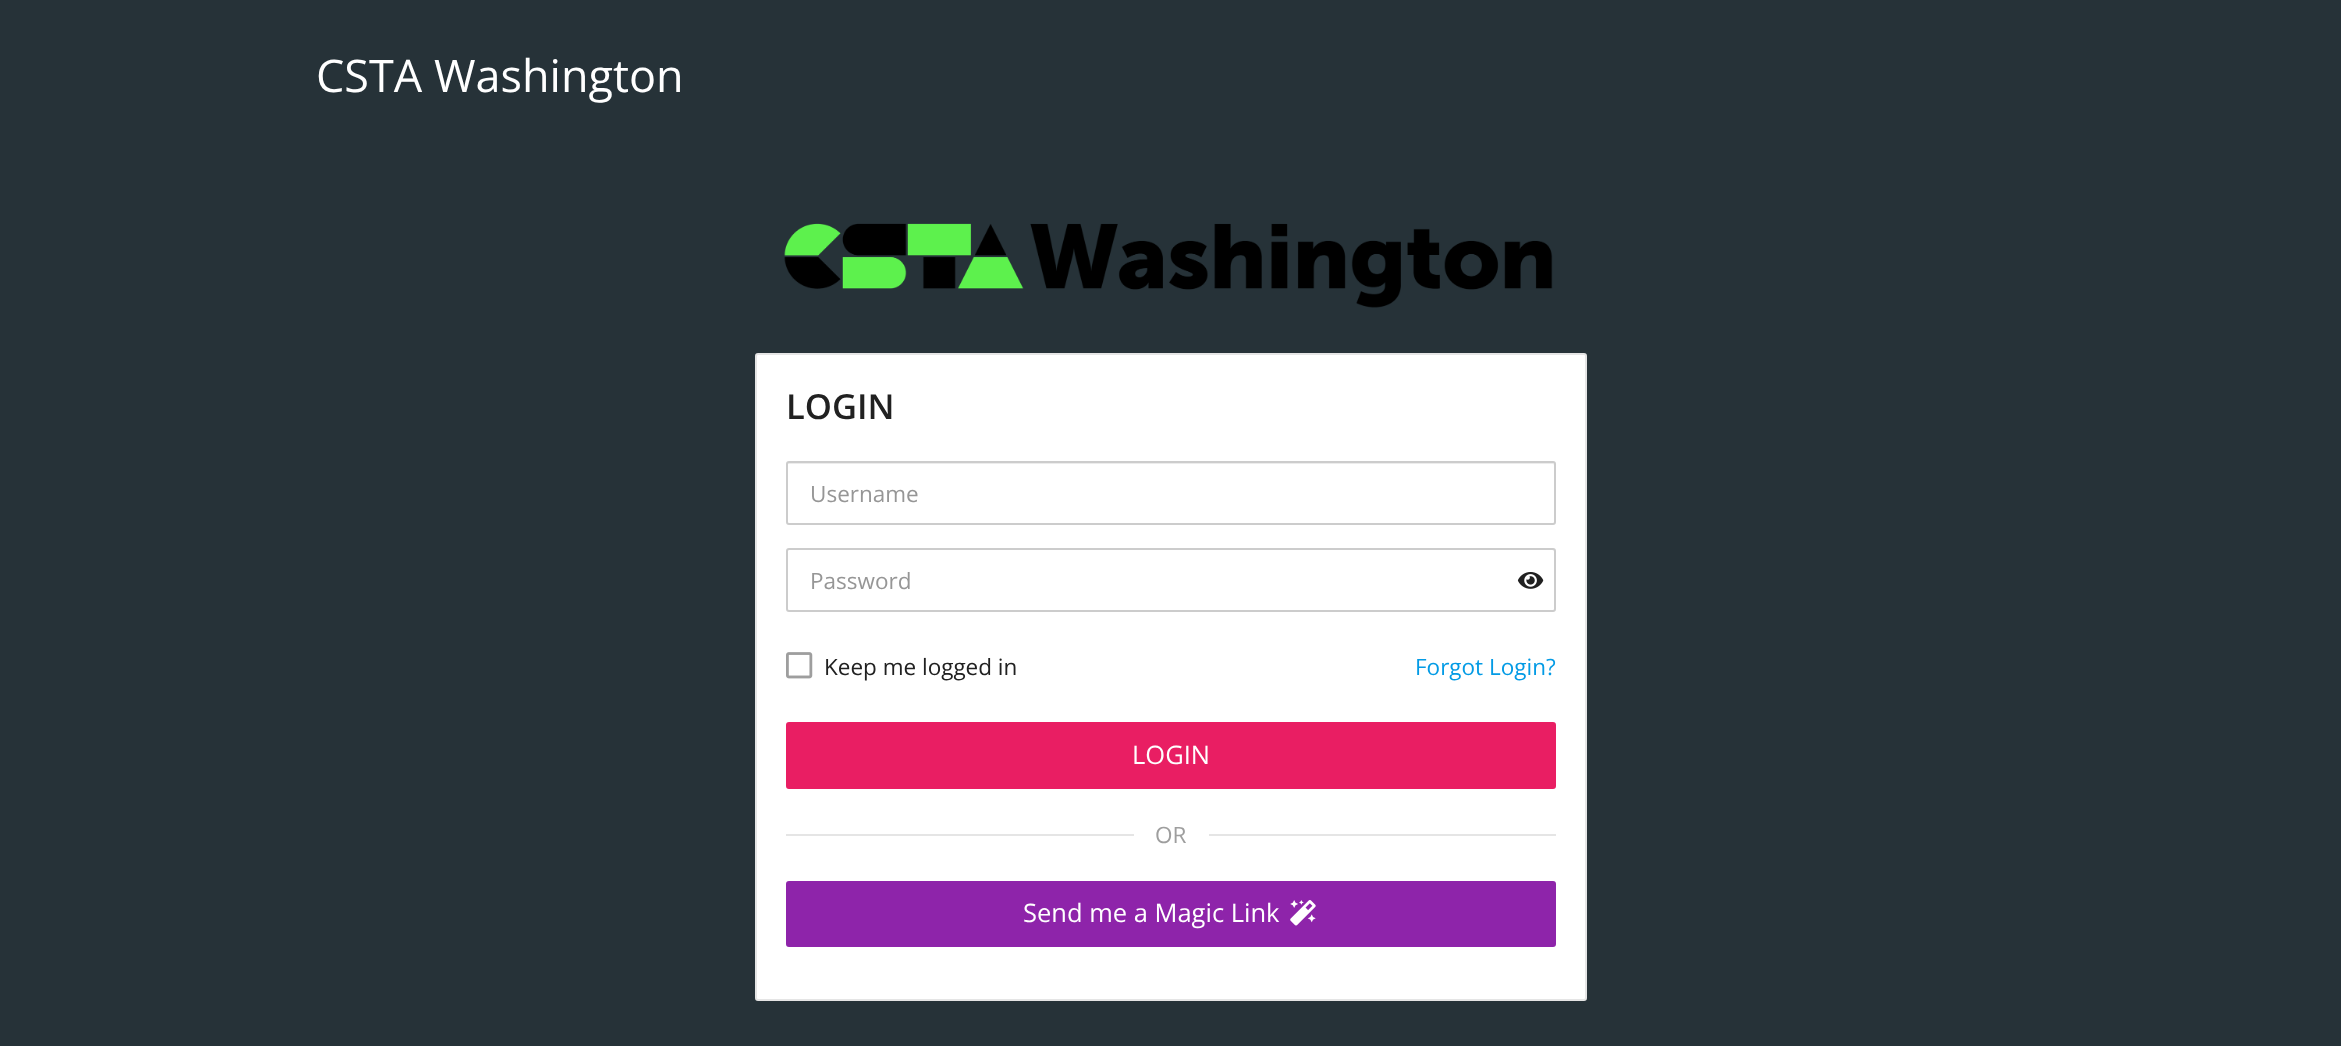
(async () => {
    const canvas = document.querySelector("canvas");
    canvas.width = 2341;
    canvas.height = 1046;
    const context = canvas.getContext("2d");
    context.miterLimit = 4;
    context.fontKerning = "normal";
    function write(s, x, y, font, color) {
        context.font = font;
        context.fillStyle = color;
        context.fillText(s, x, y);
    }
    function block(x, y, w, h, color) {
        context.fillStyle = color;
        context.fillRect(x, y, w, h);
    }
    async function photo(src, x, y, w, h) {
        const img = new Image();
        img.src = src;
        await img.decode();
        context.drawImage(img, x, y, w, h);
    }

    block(0, 0, 2341, 1046, "rgb(38, 50, 56)");
    write("CSTA Washington", 316, 92, "45px Open Sans", "rgb(255, 255, 255)");
    await photo("media/1.png", 784, 223, 769, 85);
    context.beginPath();
    context.roundRect(756, 354, 830, 646, 2);
    context.fill();
    context.strokeStyle = "rgb(229, 229, 229)";
    context.lineWidth = 2;
    context.stroke();
    write("LOGIN", 786, 419, "600 34.5px Open Sans", "rgb(33, 33, 33)");
    context.fillStyle = "rgb(236, 236, 236)";
    context.beginPath();
    context.moveTo(789, 464);
    context.lineTo(1552, 464);
    context.bezierCurveTo(1553, 464, 1554, 464, 1554, 465);
    context.bezierCurveTo(1554, 464, 1554, 462, 1552, 462);
    context.lineTo(790, 462);
    context.lineTo(788, 463);
    context.lineTo(788, 465);
    context.bezierCurveTo(788, 464, 788, 464, 789, 464);
    context.closePath();
    context.fill();
    context.beginPath();
    context.roundRect(787, 462, 768, 62, 2);
    context.strokeStyle = "rgb(204, 204, 204)";
    context.stroke();
    write("Username", 810, 502, "22.5px Open Sans", "rgb(150, 150, 150)");
    context.fillStyle = "rgb(236, 236, 236)";
    context.beginPath();
    context.moveTo(789, 550);
    context.lineTo(1552, 550);
    context.bezierCurveTo(1553, 550, 1554, 551, 1554, 552);
    context.bezierCurveTo(1554, 551, 1554, 549, 1552, 549);
    context.lineTo(790, 549);
    context.lineTo(788, 550);
    context.lineTo(788, 552);
    context.bezierCurveTo(788, 551, 788, 550, 789, 550);
    context.closePath();
    context.fill();
    context.beginPath();
    context.roundRect(787, 549, 768, 62, 2);
    context.stroke();
    write("Password", 810, 589, "22.5px Open Sans", "rgb(150, 150, 150)");
    await photo("media/2.png", 1517, 572, 27, 17);
    await photo("media/3.png", 786, 652, 27, 27);
    write("Keep me logged in", 824, 675, "22.5px Open Sans", "rgb(33, 33, 33)");
    write("Forgot Login?", 1415, 675, "22.5px Open Sans", "rgb(3, 155, 229)");
    context.fillStyle = "rgb(233, 30, 99)";
    context.beginPath();
    context.roundRect(787, 723, 768, 65, 2);
    context.fill();
    context.strokeStyle = "rgb(233, 30, 99)";
    context.stroke();
    write("LOGIN", 1132, 764, "25.5px Open Sans", "rgb(255, 255, 255)");
    block(786, 834, 770, 2, "rgb(229, 229, 229)");
    block(1134, 834, 75, 2, "rgb(255, 255, 255)");
    write("OR", 1155, 843, "22.5px Open Sans", "rgb(158, 158, 158)");
    context.fillStyle = "rgb(142, 36, 170)";
    context.beginPath();
    context.roundRect(787, 882, 768, 64, 2);
    context.fill();
    context.strokeStyle = "rgb(142, 36, 170)";
    context.stroke();
    write("Send me a Magic Link", 1023, 922, "25.5px Open Sans", "rgb(255, 255, 255)");
    await photo("media/4.png", 1290, 900, 26, 26);
})();
